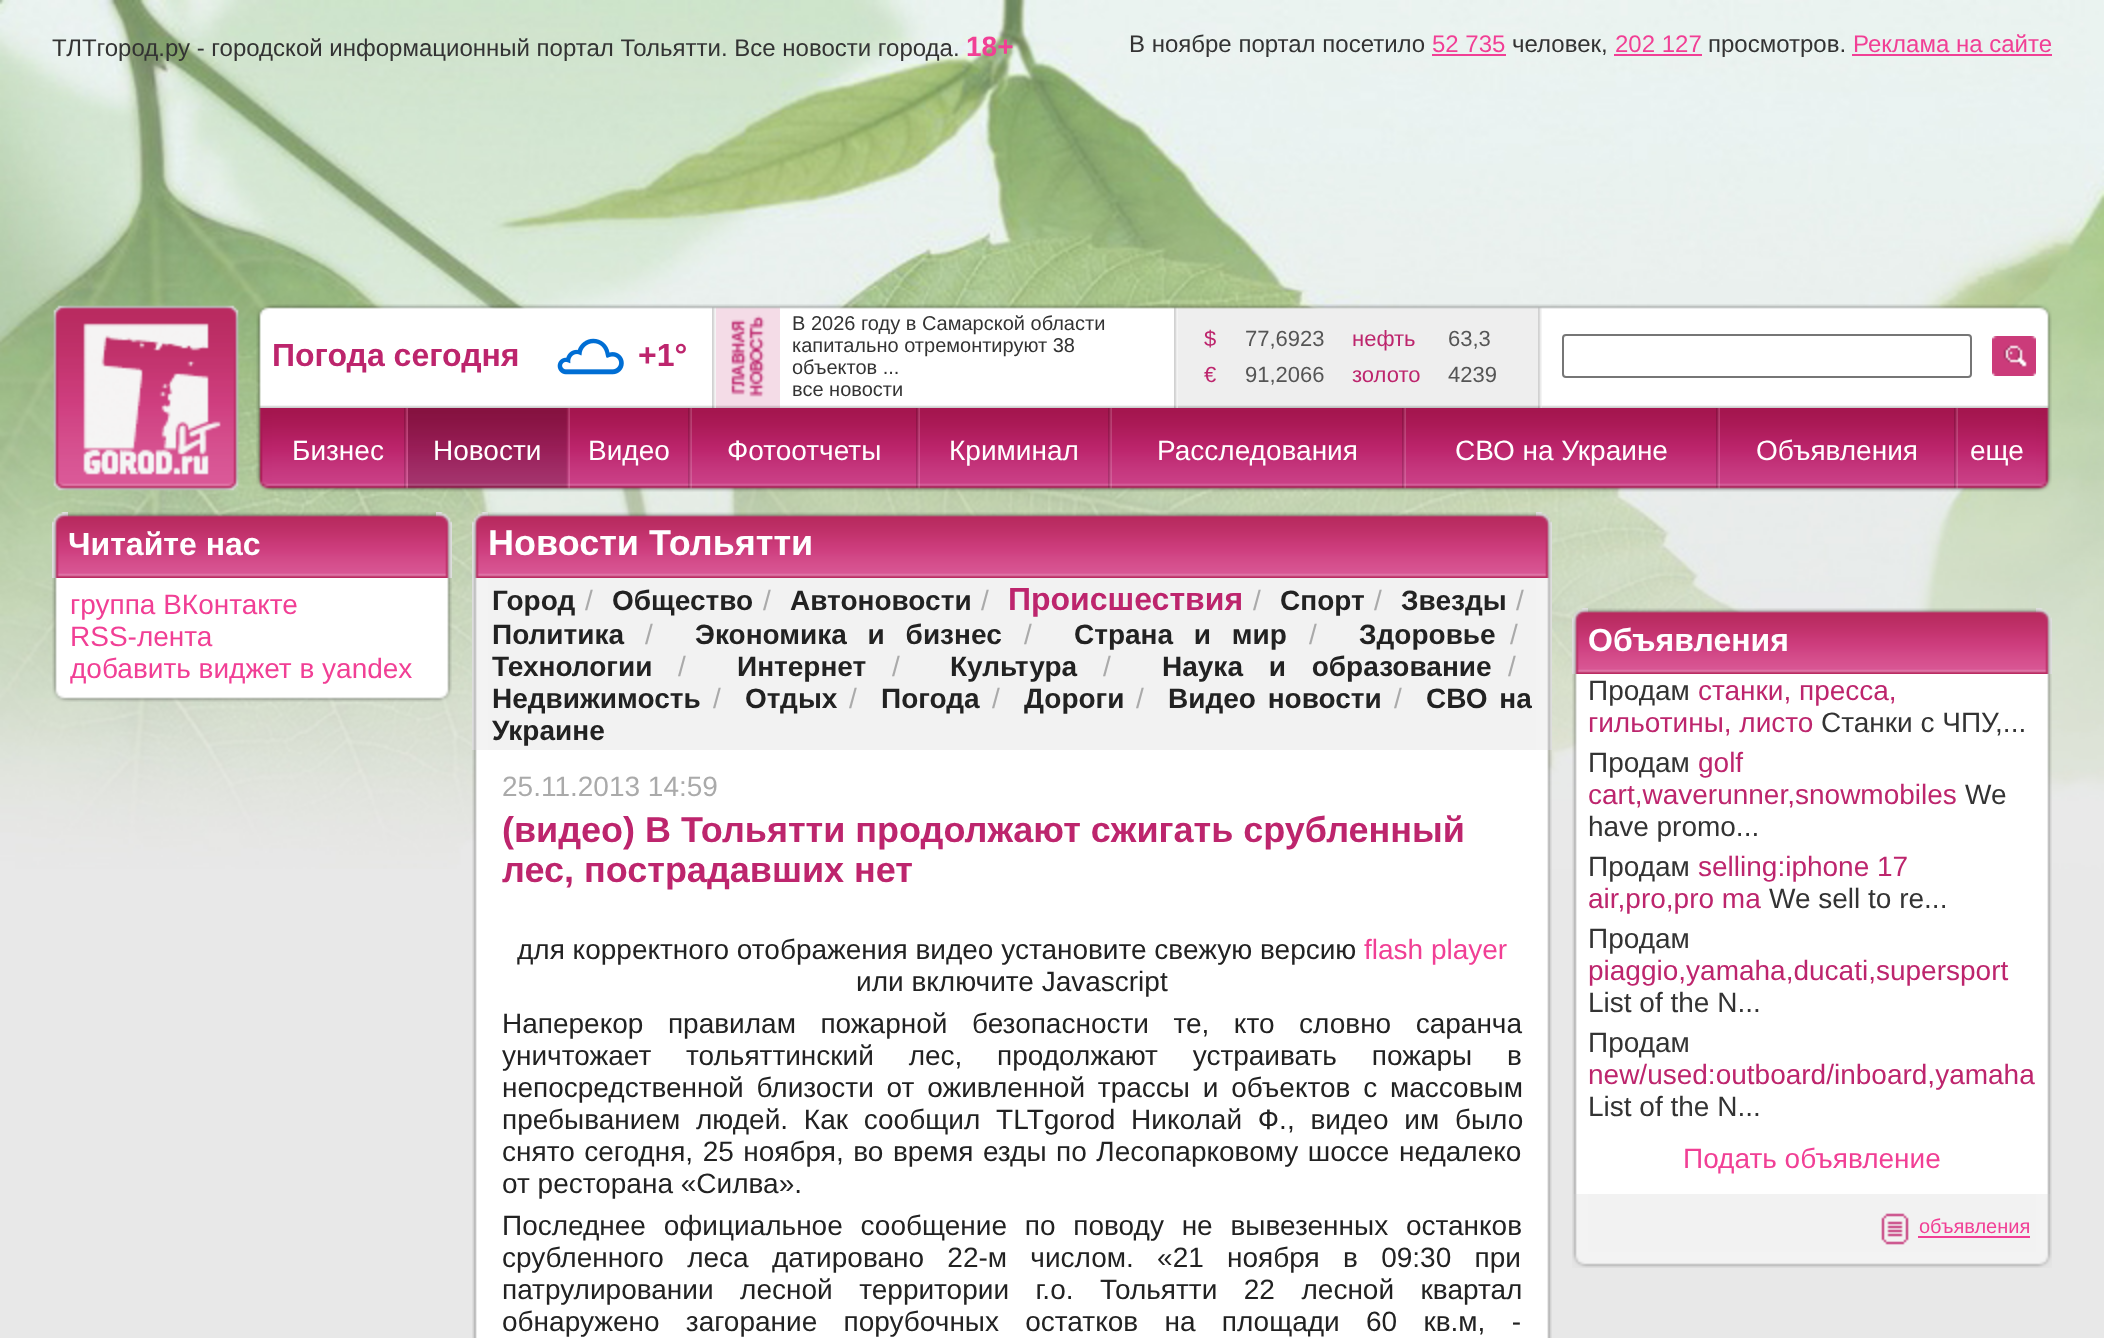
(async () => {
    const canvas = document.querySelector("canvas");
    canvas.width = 2104;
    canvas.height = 1338;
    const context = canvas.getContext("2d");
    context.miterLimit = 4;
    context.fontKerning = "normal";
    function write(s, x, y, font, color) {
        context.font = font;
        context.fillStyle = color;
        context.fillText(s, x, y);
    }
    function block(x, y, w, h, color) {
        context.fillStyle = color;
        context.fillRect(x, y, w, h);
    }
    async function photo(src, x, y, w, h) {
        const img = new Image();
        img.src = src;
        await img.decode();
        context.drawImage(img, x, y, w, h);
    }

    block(0, 0, 2104, 1338, "rgb(232, 232, 232)");
    await photo("media/1.png", 0, 0, 2104, 869);
    write("ТЛТгород.ру - городской информационный портал Тольятти. Все новости города.", 52, 56, "24px Liberation Sans", "rgb(51, 51, 51)");
    write("18+", 966, 56, "bold 28px Liberation Sans", "rgb(241, 63, 149)");
    write("В ноябре портал посетило", 1129, 52, "24px Liberation Sans", "rgb(51, 51, 51)");
    write("52 735", 1432, 52, "24px Liberation Sans", "rgb(241, 63, 149)");
    block(1432, 54, 74, 2, "rgb(241, 63, 149)");
    write("человек,", 1512, 52, "24px Liberation Sans", "rgb(51, 51, 51)");
    write("202 127", 1615, 52, "24px Liberation Sans", "rgb(241, 63, 149)");
    block(1614, 54, 88, 2, "rgb(241, 63, 149)");
    write("просмотров.", 1708, 52, "24px Liberation Sans", "rgb(51, 51, 51)");
    write("Реклама на сайте", 1853, 52, "24px Liberation Sans", "rgb(241, 63, 149)");
    block(1852, 54, 200, 2, "rgb(241, 63, 149)");
    await photo("media/2.png", 53, 305, 186, 186);
    await photo("media/3.png", 256, 304, 16, 104);
    await photo("media/4.png", 272, 304, 440, 104);
    write("Погода сегодня", 272, 366, "bold 32px Liberation Sans", "rgb(189, 37, 109)");
    await photo("media/5.png", 557, 338, 67, 37);
    write("+1°", 638, 366, "bold 32px Liberation Sans", "rgb(189, 37, 109)");
    await photo("media/6.png", 712, 304, 4, 104);
    await photo("media/7.png", 716, 304, 64, 104);
    await photo("media/8.png", 780, 304, 394, 104);
    write("В 2026 году в Самарской области", 792, 330, "20px Liberation Sans", "rgb(51, 51, 51)");
    write("капитально отремонтируют 38", 792, 352, "20px Liberation Sans", "rgb(51, 51, 51)");
    write("объектов ...", 792, 374, "20px Liberation Sans", "rgb(51, 51, 51)");
    write("все новости", 792, 396, "20px Liberation Sans", "rgb(51, 51, 51)");
    await photo("media/9.png", 1174, 304, 4, 104);
    await photo("media/10.png", 1178, 304, 360, 104);
    write("$", 1204, 346, "22px Liberation Sans", "rgb(189, 37, 109)");
    write("77,6923", 1245, 346, "22px Liberation Sans", "rgb(85, 85, 85)");
    write("нефть", 1352, 346, "22px Liberation Sans", "rgb(189, 37, 109)");
    write("63,3", 1448, 346, "22px Liberation Sans", "rgb(85, 85, 85)");
    write("€", 1204, 382, "22px Liberation Sans", "rgb(189, 37, 109)");
    write("91,2066", 1245, 382, "22px Liberation Sans", "rgb(85, 85, 85)");
    write("золото", 1352, 382, "22px Liberation Sans", "rgb(189, 37, 109)");
    write("4239", 1448, 382, "22px Liberation Sans", "rgb(85, 85, 85)");
    await photo("media/11.png", 1538, 304, 4, 104);
    await photo("media/12.png", 1542, 304, 450, 104);
    context.beginPath();
    context.roundRect(1563, 335, 408, 42, 3);
    context.strokeStyle = "rgb(118, 118, 118)";
    context.lineWidth = 2;
    context.stroke();
    await photo("media/13.png", 1992, 304, 44, 104);
    await photo("media/14.png", 1992, 336, 44, 40);
    await photo("media/15.png", 2036, 304, 16, 104);
    await photo("media/16.png", 256, 408, 16, 84);
    await photo("media/17.png", 272, 408, 132, 84);
    write("Бизнес", 292, 460, "28px Liberation Sans", "rgb(255, 255, 255)");
    await photo("media/18.png", 404, 408, 4, 84);
    await photo("media/19.png", 408, 408, 158, 84);
    write("Новости", 433, 460, "28px Liberation Sans", "rgb(255, 255, 255)");
    await photo("media/20.png", 566, 408, 4, 84);
    await photo("media/21.png", 570, 408, 118, 84);
    write("Видео", 588, 460, "28px Liberation Sans", "rgb(255, 255, 255)");
    await photo("media/22.png", 688, 408, 4, 84);
    await photo("media/23.png", 692, 408, 224, 84);
    write("Фотоотчеты", 727, 460, "28px Liberation Sans", "rgb(255, 255, 255)");
    await photo("media/24.png", 916, 408, 4, 84);
    await photo("media/25.png", 920, 408, 188, 84);
    write("Криминал", 949, 460, "28px Liberation Sans", "rgb(255, 255, 255)");
    await photo("media/26.png", 1108, 408, 4, 84);
    await photo("media/27.png", 1112, 408, 290, 84);
    write("Расследования", 1157, 460, "28px Liberation Sans", "rgb(255, 255, 255)");
    await photo("media/28.png", 1402, 408, 4, 84);
    await photo("media/29.png", 1406, 408, 310, 84);
    write("СВО на Украине", 1455, 460, "28px Liberation Sans", "rgb(255, 255, 255)");
    await photo("media/30.png", 1716, 408, 4, 84);
    await photo("media/31.png", 1720, 408, 234, 84);
    write("Объявления", 1756, 460, "28px Liberation Sans", "rgb(255, 255, 255)");
    await photo("media/32.png", 1954, 408, 4, 84);
    await photo("media/33.png", 1958, 408, 78, 84);
    write("еще", 1970, 460, "28px Liberation Sans", "rgb(255, 255, 255)");
    await photo("media/34.png", 2036, 408, 16, 84);
    await photo("media/35.png", 52, 512, 16, 66);
    await photo("media/36.png", 68, 512, 368, 66);
    write("Читайте нас", 68, 555, "bold 32px Liberation Sans", "rgb(255, 255, 255)");
    await photo("media/37.png", 436, 512, 16, 66);
    await photo("media/38.png", 52, 578, 16, 108);
    block(68, 578, 368, 108, "rgb(255, 255, 255)");
    write("группа ВКонтакте", 70, 614, "28px Liberation Sans", "rgb(241, 63, 149)");
    write("RSS-лента", 70, 646, "28px Liberation Sans", "rgb(241, 63, 149)");
    write("добавить виджет в yandex", 70, 678, "28px Liberation Sans", "rgb(241, 63, 149)");
    await photo("media/39.png", 436, 578, 16, 108);
    await photo("media/40.png", 52, 686, 16, 16);
    await photo("media/41.png", 68, 686, 368, 16);
    await photo("media/42.png", 436, 686, 16, 16);
    await photo("media/43.png", 472, 512, 11, 11);
    await photo("media/44.png", 472, 512, 16, 66);
    await photo("media/45.png", 488, 512, 1048, 66);
    write("Новости Тольятти", 488, 555, "bold 36px Liberation Sans", "rgb(255, 255, 255)");
    await photo("media/46.png", 1541, 512, 11, 11);
    await photo("media/47.png", 1536, 512, 16, 66);
    await photo("media/48.png", 472, 578, 16, 172);
    block(488, 578, 1048, 172, "rgb(242, 242, 242)");
    write("Город", 492, 610, "bold 28px Liberation Sans", "rgb(34, 34, 34)");
    write("/", 585, 610, "28px Liberation Sans", "rgb(170, 170, 170)");
    write("Общество", 612, 610, "bold 28px Liberation Sans", "rgb(34, 34, 34)");
    write("/", 763, 610, "28px Liberation Sans", "rgb(170, 170, 170)");
    write("Автоновости", 790, 610, "bold 28px Liberation Sans", "rgb(34, 34, 34)");
    write("/", 981, 610, "28px Liberation Sans", "rgb(170, 170, 170)");
    write("Происшествия", 1008, 610, "bold 32px Liberation Sans", "rgb(189, 37, 109)");
    write("/", 1253, 610, "28px Liberation Sans", "rgb(170, 170, 170)");
    write("Спорт", 1280, 610, "bold 28px Liberation Sans", "rgb(34, 34, 34)");
    write("/", 1374, 610, "28px Liberation Sans", "rgb(170, 170, 170)");
    write("Звезды", 1401, 610, "bold 28px Liberation Sans", "rgb(34, 34, 34)");
    write("/", 1516, 610, "28px Liberation Sans", "rgb(170, 170, 170)");
    write("Политика", 492, 644, "bold 28px Liberation Sans", "rgb(34, 34, 34)");
    write("/", 645, 644, "28px Liberation Sans", "rgb(170, 170, 170)");
    context.wordSpacing = "13px";
    write("Экономика и бизнес", 695, 644, "bold 28px Liberation Sans", "rgb(34, 34, 34)");
    context.wordSpacing = "0px";
    write("/", 1024, 644, "28px Liberation Sans", "rgb(170, 170, 170)");
    context.wordSpacing = "13px";
    write("Страна и мир", 1074, 644, "bold 28px Liberation Sans", "rgb(34, 34, 34)");
    context.wordSpacing = "0px";
    write("/", 1309, 644, "28px Liberation Sans", "rgb(170, 170, 170)");
    write("Здоровье", 1359, 644, "bold 28px Liberation Sans", "rgb(34, 34, 34)");
    write("/", 1510, 644, "28px Liberation Sans", "rgb(170, 170, 170)");
    write("Технологии", 492, 676, "bold 28px Liberation Sans", "rgb(34, 34, 34)");
    write("/", 678, 676, "28px Liberation Sans", "rgb(170, 170, 170)");
    write("Интернет", 737, 676, "bold 28px Liberation Sans", "rgb(34, 34, 34)");
    write("/", 892, 676, "28px Liberation Sans", "rgb(170, 170, 170)");
    write("Культура", 950, 676, "bold 28px Liberation Sans", "rgb(34, 34, 34)");
    write("/", 1103, 676, "28px Liberation Sans", "rgb(170, 170, 170)");
    context.wordSpacing = "18px";
    write("Наука и образование", 1162, 676, "bold 28px Liberation Sans", "rgb(34, 34, 34)");
    context.wordSpacing = "0px";
    write("/", 1508, 676, "28px Liberation Sans", "rgb(170, 170, 170)");
    write("Недвижимость", 492, 708, "bold 28px Liberation Sans", "rgb(34, 34, 34)");
    write("/", 713, 708, "28px Liberation Sans", "rgb(170, 170, 170)");
    write("Отдых", 745, 708, "bold 28px Liberation Sans", "rgb(34, 34, 34)");
    write("/", 849, 708, "28px Liberation Sans", "rgb(170, 170, 170)");
    write("Погода", 881, 708, "bold 28px Liberation Sans", "rgb(34, 34, 34)");
    write("/", 992, 708, "28px Liberation Sans", "rgb(170, 170, 170)");
    write("Дороги", 1024, 708, "bold 28px Liberation Sans", "rgb(34, 34, 34)");
    write("/", 1136, 708, "28px Liberation Sans", "rgb(170, 170, 170)");
    context.wordSpacing = "4px";
    write("Видео новости", 1168, 708, "bold 28px Liberation Sans", "rgb(34, 34, 34)");
    context.wordSpacing = "0px";
    write("/", 1394, 708, "28px Liberation Sans", "rgb(170, 170, 170)");
    context.wordSpacing = "4px";
    write("СВО на", 1426, 708, "bold 28px Liberation Sans", "rgb(34, 34, 34)");
    context.wordSpacing = "0px";
    write("Украине", 492, 740, "bold 28px Liberation Sans", "rgb(34, 34, 34)");
    await photo("media/49.png", 1536, 578, 16, 172);
    await photo("media/50.png", 472, 750, 16, 588);
    block(488, 750, 1048, 588, "rgb(255, 255, 255)");
    write("25.11.2013 14:59", 502, 796, "28px Liberation Sans", "rgb(170, 170, 170)");
    write("(видео) В Тольятти продолжают сжигать срубленный", 502, 842, "bold 36px Liberation Sans", "rgb(189, 37, 109)");
    write("лес, пострадавших нет", 502, 882, "bold 36px Liberation Sans", "rgb(189, 37, 109)");
    write("для корректного отображения видео установите свежую версию", 517, 959, "28px Liberation Sans", "rgb(34, 34, 34)");
    write("flash player", 1364, 959, "28px Liberation Sans", "rgb(241, 63, 149)");
    write("или включите Javascript", 856, 991, "28px Liberation Sans", "rgb(34, 34, 34)");
    context.wordSpacing = "16.75px";
    write("Наперекор правилам пожарной безопасности те, кто словно саранча", 502, 1033, "28px Liberation Sans", "rgb(34, 34, 34)");
    context.wordSpacing = "27px";
    write("уничтожает тольяттинский лес, продолжают устраивать пожары в", 502, 1065, "28px Liberation Sans", "rgb(34, 34, 34)");
    context.wordSpacing = "5px";
    write("непосредственной близости от оживленной трассы и объектов с массовым", 502, 1097, "28px Liberation Sans", "rgb(34, 34, 34)");
    context.wordSpacing = "8px";
    write("пребыванием людей. Как сообщил TLTgorod Николай Ф., видео им было", 502, 1129, "28px Liberation Sans", "rgb(34, 34, 34)");
    context.wordSpacing = "1.75px";
    write("снято сегодня, 25 ноября, во время езды по Лесопарковому шоссе недалеко", 502, 1161, "28px Liberation Sans", "rgb(34, 34, 34)");
    context.wordSpacing = "0px";
    write("от ресторана «Силва».", 502, 1193, "28px Liberation Sans", "rgb(34, 34, 34)");
    context.wordSpacing = "10px";
    write("Последнее официальное сообщение по поводу не вывезенных останков", 502, 1235, "28px Liberation Sans", "rgb(34, 34, 34)");
    context.wordSpacing = "15.5px";
    write("срубленного леса датировано 22-м числом. «21 ноября в 09:30 при", 502, 1267, "28px Liberation Sans", "rgb(34, 34, 34)");
    context.wordSpacing = "18.75px";
    write("патрулировании лесной территории г.о. Тольятти 22 лесной квартал", 502, 1299, "28px Liberation Sans", "rgb(34, 34, 34)");
    context.wordSpacing = "18.5px";
    write("обнаружено загорание порубочных остатков на площади 60 кв.м, -", 502, 1331, "28px Liberation Sans", "rgb(34, 34, 34)");
    await photo("media/51.png", 1536, 750, 16, 588);
    await photo("media/52.png", 1572, 608, 16, 66);
    await photo("media/53.png", 1588, 608, 448, 66);
    context.wordSpacing = "0px";
    write("Объявления", 1588, 651, "bold 32px Liberation Sans", "rgb(255, 255, 255)");
    await photo("media/54.png", 2036, 608, 16, 66);
    await photo("media/55.png", 1572, 674, 16, 520);
    block(1588, 674, 448, 520, "rgb(255, 255, 255)");
    write("Продам", 1588, 700, "28px Liberation Sans", "rgb(51, 51, 51)");
    write("станки, пресса,", 1698, 700, "28px Liberation Sans", "rgb(189, 37, 109)");
    write("гильотины, листо", 1588, 732, "28px Liberation Sans", "rgb(189, 37, 109)");
    write("Станки с ЧПУ,...", 1821, 732, "28px Liberation Sans", "rgb(51, 51, 51)");
    write("Продам", 1588, 772, "28px Liberation Sans", "rgb(51, 51, 51)");
    write("golf", 1698, 772, "28px Liberation Sans", "rgb(189, 37, 109)");
    write("cart,waverunner,snowmobiles", 1588, 804, "28px Liberation Sans", "rgb(189, 37, 109)");
    write("We", 1965, 804, "28px Liberation Sans", "rgb(51, 51, 51)");
    write("have promo...", 1588, 836, "28px Liberation Sans", "rgb(51, 51, 51)");
    write("Продам", 1588, 876, "28px Liberation Sans", "rgb(51, 51, 51)");
    write("selling:iphone 17", 1698, 876, "28px Liberation Sans", "rgb(189, 37, 109)");
    write("air,pro,pro ma", 1588, 908, "28px Liberation Sans", "rgb(189, 37, 109)");
    write("We sell to re...", 1769, 908, "28px Liberation Sans", "rgb(51, 51, 51)");
    write("Продам", 1588, 948, "28px Liberation Sans", "rgb(51, 51, 51)");
    write("piaggio,yamaha,ducati,supersport", 1588, 980, "28px Liberation Sans", "rgb(189, 37, 109)");
    write("List of the N...", 1588, 1012, "28px Liberation Sans", "rgb(51, 51, 51)");
    write("Продам", 1588, 1052, "28px Liberation Sans", "rgb(51, 51, 51)");
    write("new/used:outboard/inboard,yamaha", 1588, 1084, "28px Liberation Sans", "rgb(189, 37, 109)");
    write("List of the N...", 1588, 1116, "28px Liberation Sans", "rgb(51, 51, 51)");
    write("Подать объявление", 1683, 1168, "28px Liberation Sans", "rgb(241, 63, 149)");
    await photo("media/56.png", 2036, 674, 16, 520);
    await photo("media/57.png", 1572, 1194, 16, 58);
    block(1588, 1194, 448, 58, "rgb(242, 242, 242)");
    await photo("media/58.png", 1881, 1213, 28, 32);
    write("объявления", 1919, 1233, "20px Liberation Sans", "rgb(241, 63, 149)");
    block(1918, 1236, 112, 2, "rgb(241, 63, 149)");
    await photo("media/59.png", 2036, 1194, 16, 58);
    await photo("media/60.png", 1572, 1252, 16, 16);
    await photo("media/61.png", 1588, 1252, 448, 16);
    await photo("media/62.png", 2036, 1252, 16, 16);
})();
